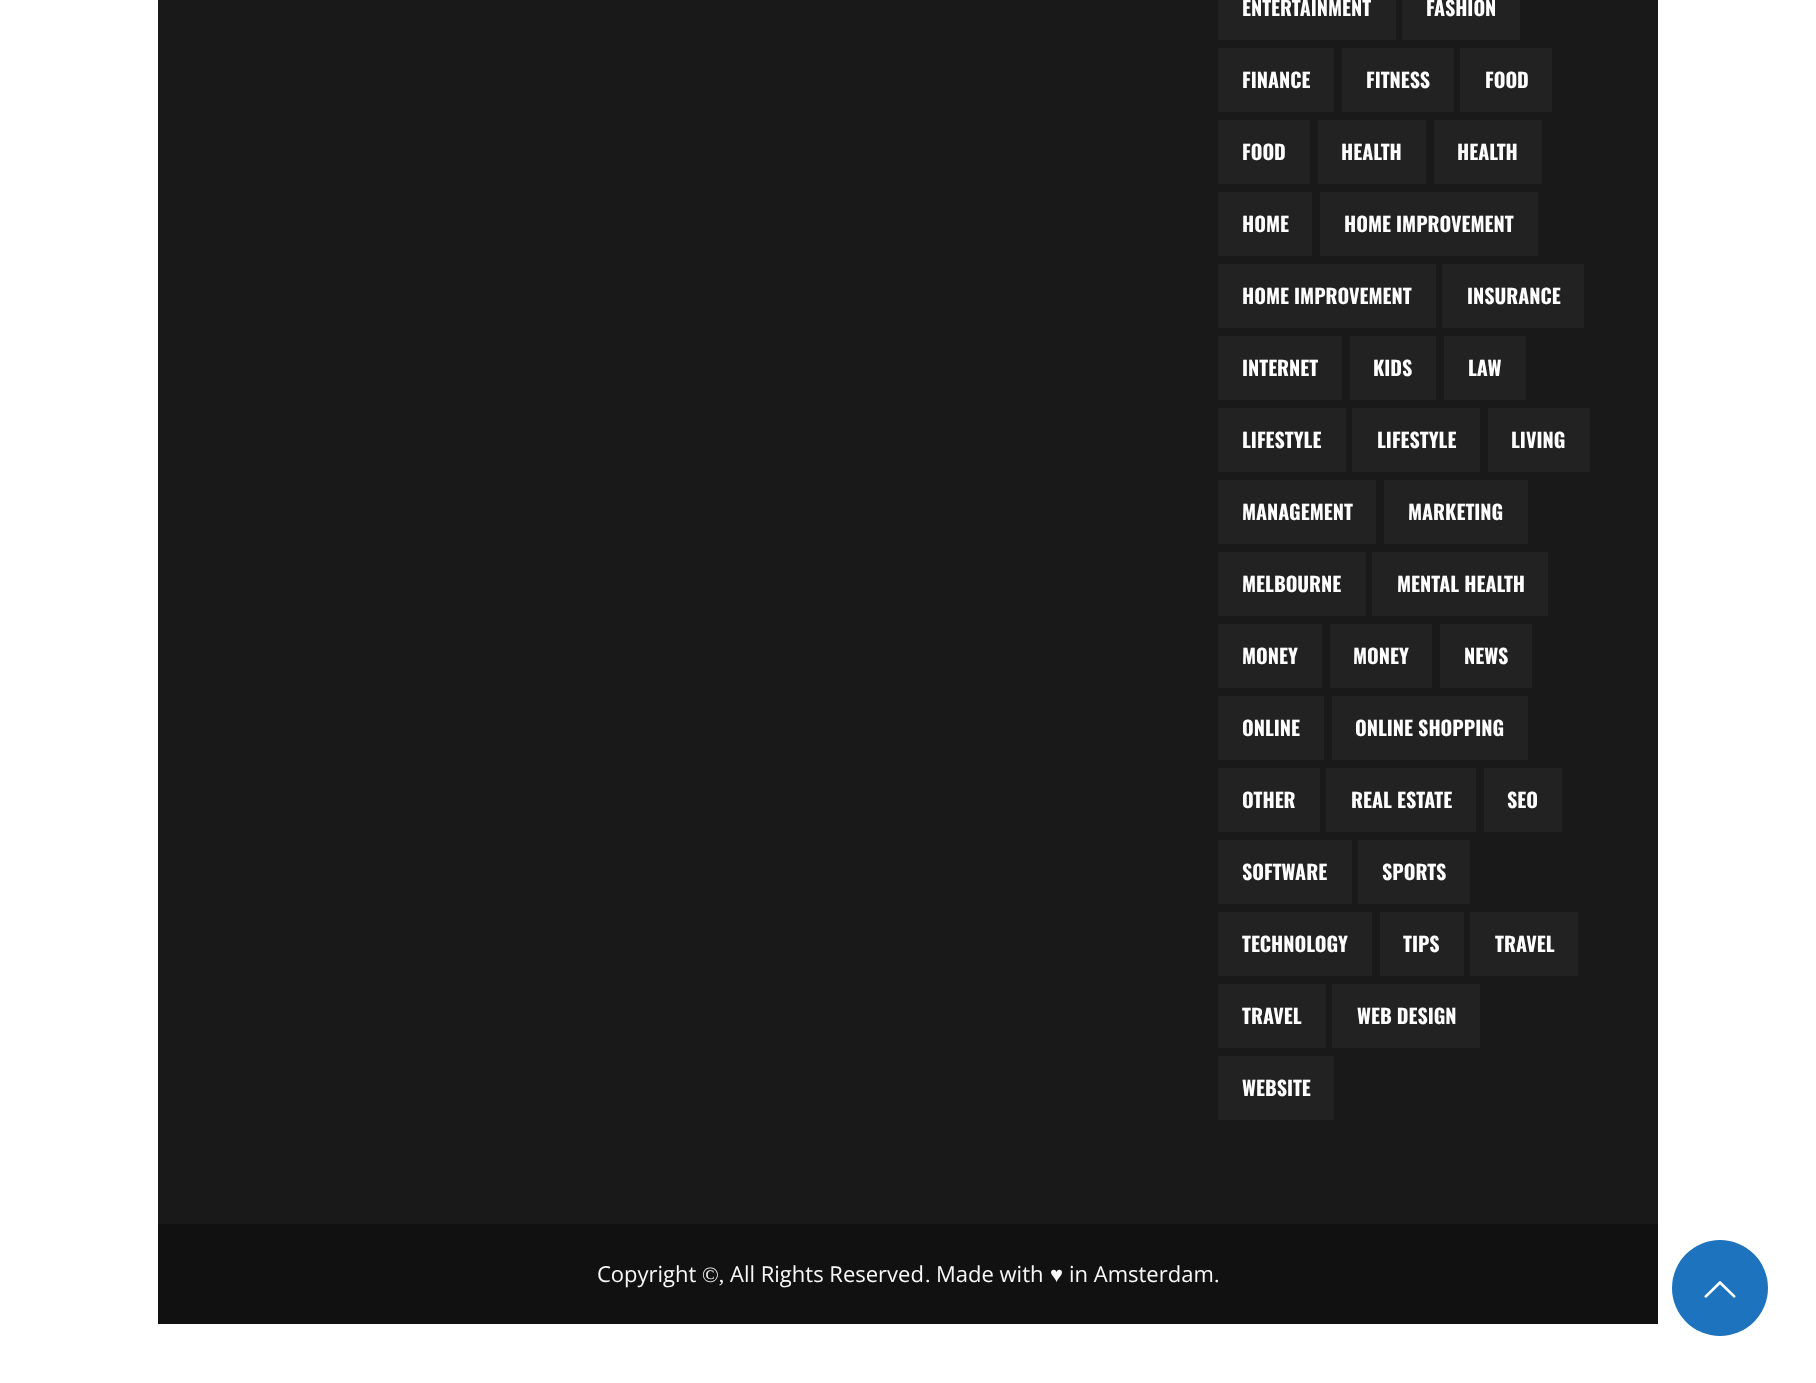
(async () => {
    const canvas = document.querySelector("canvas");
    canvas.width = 1816;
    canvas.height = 1383;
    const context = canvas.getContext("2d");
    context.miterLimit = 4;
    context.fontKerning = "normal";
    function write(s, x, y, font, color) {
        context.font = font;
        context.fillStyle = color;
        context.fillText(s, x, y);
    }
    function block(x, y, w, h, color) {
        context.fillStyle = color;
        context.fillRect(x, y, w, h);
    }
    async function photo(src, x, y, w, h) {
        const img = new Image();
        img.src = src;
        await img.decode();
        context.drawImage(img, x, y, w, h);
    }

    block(0, 0, 1816, 1383, "rgb(255, 255, 255)");
    block(158, 0, 1500, 1224, "rgb(25, 25, 25)");
    block(1218, 0, 178, 40, "rgb(34, 34, 34)");
    write("ENTERTAINMENT", 1242, 16, "bold 20px Oswald", "rgb(255, 255, 255)");
    block(1402, 0, 118, 40, "rgb(34, 34, 34)");
    write("FASHION", 1426, 16, "bold 20px Oswald", "rgb(255, 255, 255)");
    block(1218, 48, 116, 64, "rgb(34, 34, 34)");
    write("FINANCE", 1242, 88, "bold 20px Oswald", "rgb(255, 255, 255)");
    block(1342, 48, 112, 64, "rgb(34, 34, 34)");
    write("FITNESS", 1366, 88, "bold 20px Oswald", "rgb(255, 255, 255)");
    block(1460, 48, 92, 64, "rgb(34, 34, 34)");
    write("FOOD", 1485, 88, "bold 20px Oswald", "rgb(255, 255, 255)");
    block(1218, 120, 92, 64, "rgb(34, 34, 34)");
    write("FOOD", 1242, 160, "bold 20px Oswald", "rgb(255, 255, 255)");
    block(1318, 120, 108, 64, "rgb(34, 34, 34)");
    write("HEALTH", 1341, 160, "bold 20px Oswald", "rgb(255, 255, 255)");
    block(1434, 120, 108, 64, "rgb(34, 34, 34)");
    write("HEALTH", 1457, 160, "bold 20px Oswald", "rgb(255, 255, 255)");
    block(1218, 192, 94, 64, "rgb(34, 34, 34)");
    write("HOME", 1242, 232, "bold 20px Oswald", "rgb(255, 255, 255)");
    block(1320, 192, 218, 64, "rgb(34, 34, 34)");
    write("HOME IMPROVEMENT", 1344, 232, "bold 20px Oswald", "rgb(255, 255, 255)");
    block(1218, 264, 218, 64, "rgb(34, 34, 34)");
    write("HOME IMPROVEMENT", 1242, 304, "bold 20px Oswald", "rgb(255, 255, 255)");
    block(1442, 264, 142, 64, "rgb(34, 34, 34)");
    write("INSURANCE", 1467, 304, "bold 20px Oswald", "rgb(255, 255, 255)");
    block(1218, 336, 124, 64, "rgb(34, 34, 34)");
    write("INTERNET", 1242, 376, "bold 20px Oswald", "rgb(255, 255, 255)");
    block(1350, 336, 86, 64, "rgb(34, 34, 34)");
    write("KIDS", 1373, 376, "bold 20px Oswald", "rgb(255, 255, 255)");
    block(1444, 336, 82, 64, "rgb(34, 34, 34)");
    write("LAW", 1468, 376, "bold 20px Oswald", "rgb(255, 255, 255)");
    block(1218, 408, 128, 64, "rgb(34, 34, 34)");
    write("LIFESTYLE", 1242, 448, "bold 20px Oswald", "rgb(255, 255, 255)");
    block(1352, 408, 128, 64, "rgb(34, 34, 34)");
    write("LIFESTYLE", 1377, 448, "bold 20px Oswald", "rgb(255, 255, 255)");
    block(1488, 408, 102, 64, "rgb(34, 34, 34)");
    write("LIVING", 1511, 448, "bold 20px Oswald", "rgb(255, 255, 255)");
    block(1218, 480, 158, 64, "rgb(34, 34, 34)");
    write("MANAGEMENT", 1242, 520, "bold 20px Oswald", "rgb(255, 255, 255)");
    block(1384, 480, 144, 64, "rgb(34, 34, 34)");
    write("MARKETING", 1408, 520, "bold 20px Oswald", "rgb(255, 255, 255)");
    block(1218, 552, 148, 64, "rgb(34, 34, 34)");
    write("MELBOURNE", 1242, 592, "bold 20px Oswald", "rgb(255, 255, 255)");
    block(1372, 552, 176, 64, "rgb(34, 34, 34)");
    write("MENTAL HEALTH", 1397, 592, "bold 20px Oswald", "rgb(255, 255, 255)");
    block(1218, 624, 104, 64, "rgb(34, 34, 34)");
    write("MONEY", 1242, 664, "bold 20px Oswald", "rgb(255, 255, 255)");
    block(1330, 624, 102, 64, "rgb(34, 34, 34)");
    write("MONEY", 1353, 664, "bold 20px Oswald", "rgb(255, 255, 255)");
    block(1440, 624, 92, 64, "rgb(34, 34, 34)");
    write("NEWS", 1464, 664, "bold 20px Oswald", "rgb(255, 255, 255)");
    block(1218, 696, 106, 64, "rgb(34, 34, 34)");
    write("ONLINE", 1242, 736, "bold 20px Oswald", "rgb(255, 255, 255)");
    block(1332, 696, 196, 64, "rgb(34, 34, 34)");
    write("ONLINE SHOPPING", 1355, 736, "bold 20px Oswald", "rgb(255, 255, 255)");
    block(1218, 768, 102, 64, "rgb(34, 34, 34)");
    write("OTHER", 1242, 808, "bold 20px Oswald", "rgb(255, 255, 255)");
    block(1326, 768, 150, 64, "rgb(34, 34, 34)");
    write("REAL ESTATE", 1351, 808, "bold 20px Oswald", "rgb(255, 255, 255)");
    block(1484, 768, 78, 64, "rgb(34, 34, 34)");
    write("SEO", 1507, 808, "bold 20px Oswald", "rgb(255, 255, 255)");
    block(1218, 840, 134, 64, "rgb(34, 34, 34)");
    write("SOFTWARE", 1242, 880, "bold 20px Oswald", "rgb(255, 255, 255)");
    block(1358, 840, 112, 64, "rgb(34, 34, 34)");
    write("SPORTS", 1382, 880, "bold 20px Oswald", "rgb(255, 255, 255)");
    block(1218, 912, 154, 64, "rgb(34, 34, 34)");
    write("TECHNOLOGY", 1242, 952, "bold 20px Oswald", "rgb(255, 255, 255)");
    block(1380, 912, 84, 64, "rgb(34, 34, 34)");
    write("TIPS", 1403, 952, "bold 20px Oswald", "rgb(255, 255, 255)");
    block(1470, 912, 108, 64, "rgb(34, 34, 34)");
    write("TRAVEL", 1495, 952, "bold 20px Oswald", "rgb(255, 255, 255)");
    block(1218, 984, 108, 64, "rgb(34, 34, 34)");
    write("TRAVEL", 1242, 1024, "bold 20px Oswald", "rgb(255, 255, 255)");
    block(1332, 984, 148, 64, "rgb(34, 34, 34)");
    write("WEB DESIGN", 1357, 1024, "bold 20px Oswald", "rgb(255, 255, 255)");
    block(1218, 1056, 116, 64, "rgb(34, 34, 34)");
    write("WEBSITE", 1242, 1096, "bold 20px Oswald", "rgb(255, 255, 255)");
    block(158, 1224, 1500, 100, "rgb(17, 17, 17)");
    write("Copyright", 597, 1282, "22px Open Sans", "rgb(247, 247, 247)");
    write("©,", 702, 1282, "22px Liberation Serif", "rgb(247, 247, 247)");
    write("All Rights Reserved", 730, 1282, "22px Open Sans", "rgb(247, 247, 247)");
    write(".", 925, 1282, "22px Liberation Serif", "rgb(247, 247, 247)");
    write("Made with", 936, 1282, "22px Open Sans", "rgb(247, 247, 247)");
    write("♥", 1050, 1282, "22px Liberation Serif", "rgb(247, 247, 247)");
    write("in Amsterdam", 1069, 1282, "22px Open Sans", "rgb(247, 247, 247)");
    write(".", 1214, 1282, "22px Liberation Serif", "rgb(247, 247, 247)");
    context.fillStyle = "rgb(30, 115, 190)";
    context.beginPath();
    context.arc(1720, 1288, 48, 0, Math.PI * 2);
    context.fill();
    await photo("media/1.png", 1704, 1281, 32, 17);
})();
